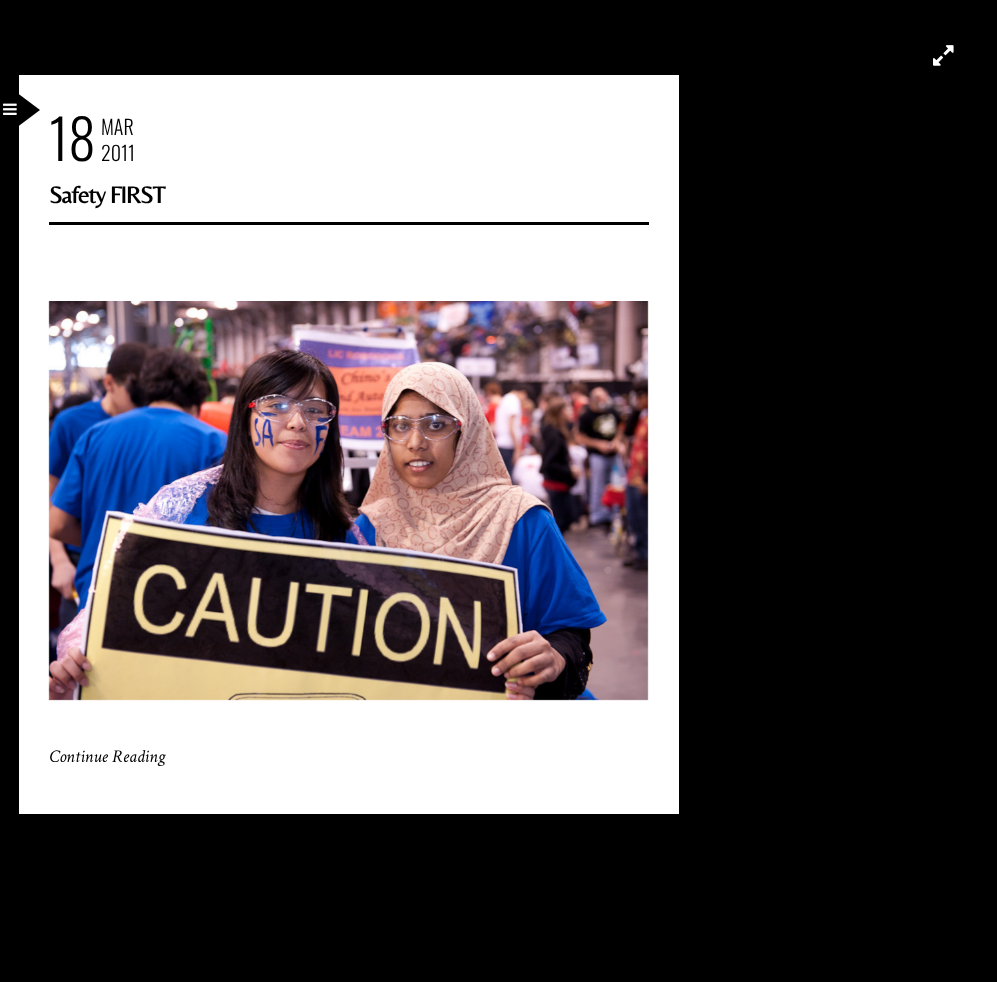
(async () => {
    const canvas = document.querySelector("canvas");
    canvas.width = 997;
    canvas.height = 982;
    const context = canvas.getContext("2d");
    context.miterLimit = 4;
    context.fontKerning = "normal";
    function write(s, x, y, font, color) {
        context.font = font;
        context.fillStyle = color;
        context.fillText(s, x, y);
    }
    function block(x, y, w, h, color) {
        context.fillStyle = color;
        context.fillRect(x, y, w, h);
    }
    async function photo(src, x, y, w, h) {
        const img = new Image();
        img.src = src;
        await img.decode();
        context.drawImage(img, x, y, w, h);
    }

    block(0, 0, 997, 982, "rgb(0, 0, 0)");
    block(19, 75, 660, 739, "rgb(255, 255, 255)");
    context.fillStyle = "rgb(0, 0, 0)";
    context.beginPath();
    context.moveTo(0, 140);
    context.lineTo(0, 80);
    context.lineTo(40, 110);
    context.closePath();
    context.fill();
    await photo("media/1.png", 3, 103, 14, 12);
    await photo("media/2.png", 933, 45, 21, 21);
    write("18", 49, 161, "300 55px Oswald", "rgb(0, 0, 0)");
    write("MAR", 101, 135, "300 20px Oswald", "rgb(0, 0, 0)");
    write("2011", 101, 161, "300 20px Oswald", "rgb(0, 0, 0)");
    context.letterSpacing = "-1px";
    write("Safety FIRST", 49, 203, "bold 24px Belleza", "rgb(0, 0, 0)");
    block(49, 222, 600, 3, "rgb(0, 0, 0)");
    await photo("media/3.png", 48, 301, 601, 400);
    context.letterSpacing = "0px";
    write("Continue Reading", 49, 762, "italic 18px Crimson Text", "rgb(0, 0, 0)");
})();
